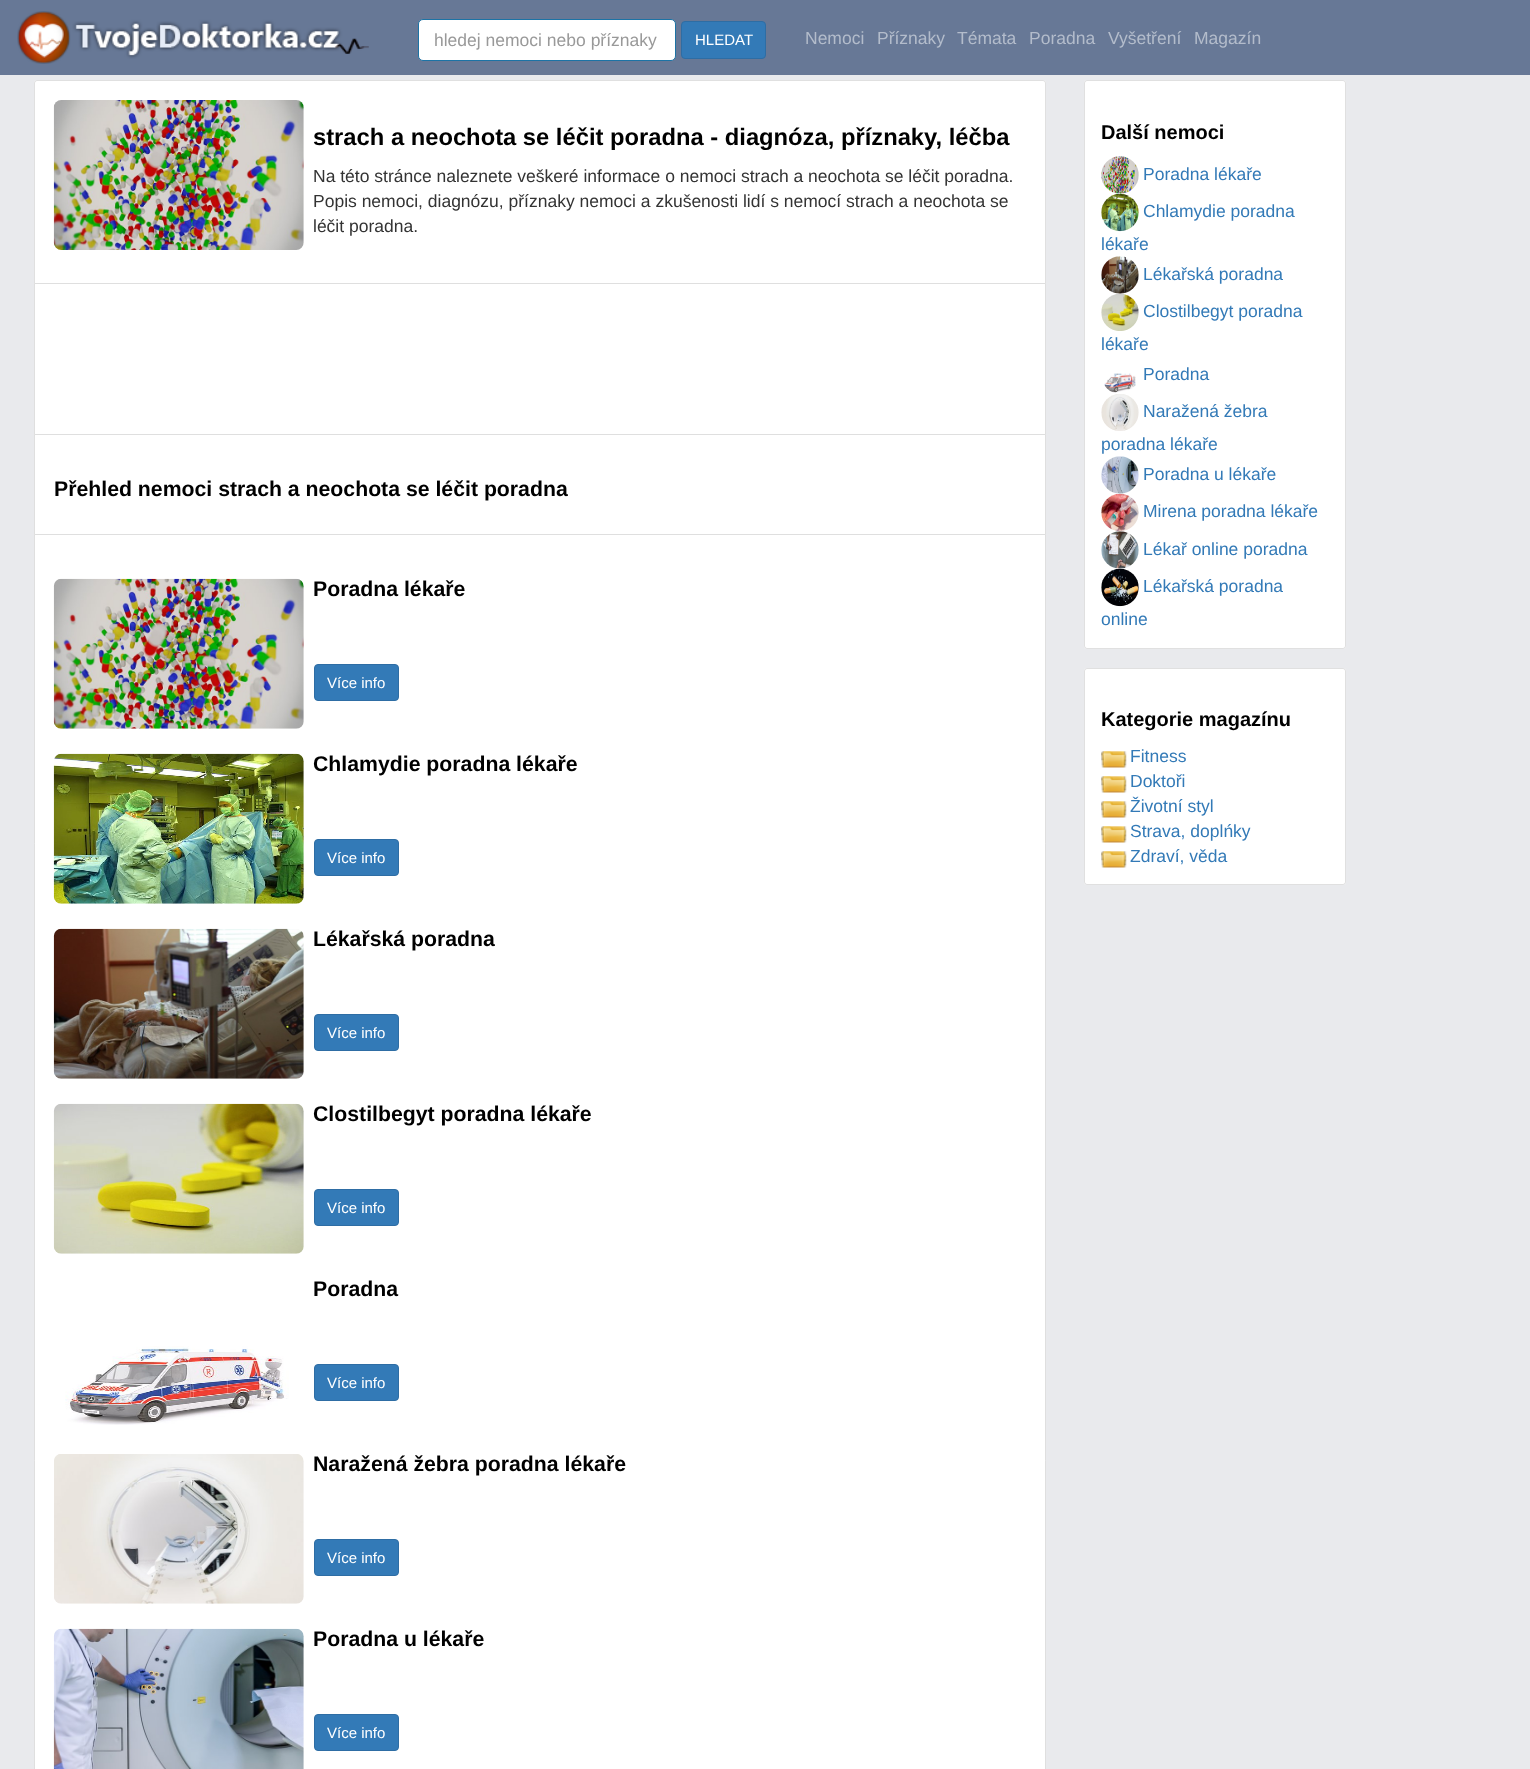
(async () => {
    const canvas = document.querySelector("canvas");
    canvas.width = 1530;
    canvas.height = 1769;
    const context = canvas.getContext("2d");
    context.miterLimit = 4;
    context.fontKerning = "normal";
    function write(s, x, y, font, color) {
        context.font = font;
        context.fillStyle = color;
        context.fillText(s, x, y);
    }
    function block(x, y, w, h, color) {
        context.fillStyle = color;
        context.fillRect(x, y, w, h);
    }
    function card(x, y, w, h, r, color) {
        context.fillStyle = color;
        context.beginPath();
        context.roundRect(x, y, w, h, r);
        context.fill();
    }
    async function photo(src, x, y, w, h) {
        const img = new Image();
        img.src = src;
        await img.decode();
        context.drawImage(img, x, y, w, h);
    }

    block(0, 0, 1530, 1769, "rgb(233, 234, 237)");
    block(0, 0, 1530, 75, "rgb(103, 120, 150)");
    await photo("media/1.png", 17, 11, 352, 53);
    context.fillStyle = "rgb(255, 255, 255)";
    context.beginPath();
    context.roundRect(418.5, 19.5, 257, 41, 4.5);
    context.fill();
    context.strokeStyle = "rgb(28, 115, 165)";
    context.stroke();
    write("hledej nemoci nebo příznaky", 434, 46, "17.5px Liberation Sans", "rgb(153, 153, 153)");
    context.fillStyle = "rgb(51, 122, 183)";
    context.beginPath();
    context.roundRect(681.5, 21.5, 84, 37, 3.5);
    context.fill();
    context.strokeStyle = "rgb(46, 109, 164)";
    context.stroke();
    write("HLEDAT", 695, 45, "15px Liberation Sans", "rgb(255, 255, 255)");
    write("Nemoci", 805, 44, "17.5px Liberation Sans", "rgb(179, 188, 203)");
    write("Příznaky", 877, 44, "17.5px Liberation Sans", "rgb(179, 188, 203)");
    write("Témata", 957, 44, "17.5px Liberation Sans", "rgb(179, 188, 203)");
    write("Poradna", 1029, 44, "17.5px Liberation Sans", "rgb(179, 188, 203)");
    write("Vyšetření", 1108, 44, "17.5px Liberation Sans", "rgb(179, 188, 203)");
    write("Magazín", 1194, 44, "17.5px Liberation Sans", "rgb(179, 188, 203)");
    context.fillStyle = "rgb(255, 255, 255)";
    context.beginPath();
    context.roundRect(34, 80, 1012, 204, [3, 3, 0, 0]);
    context.fill();
    context.beginPath();
    context.roundRect(34.5, 80.5, 1011, 203, [2.5, 2.5, 0, 0]);
    context.strokeStyle = "rgba(0, 0, 0, 0.12)";
    context.stroke();
    await photo("media/2.png", 53, 100, 251, 150);
    write("strach a neochota se léčit poradna - diagnóza, příznaky, léčba", 313, 145, "bold 23.75px Liberation Sans", "rgb(0, 0, 0)");
    write("Na této stránce naleznete veškeré informace o nemoci strach a neochota se léčit poradna.", 313, 182, "17.5px Liberation Sans", "rgb(51, 51, 51)");
    write("Popis nemoci, diagnózu, příznaky nemoci a zkušenosti lidí s nemocí strach a neochota se", 313, 207, "17.5px Liberation Sans", "rgb(51, 51, 51)");
    write("léčit poradna.", 313, 232, "17.5px Liberation Sans", "rgb(51, 51, 51)");
    context.fillStyle = "rgb(255, 255, 255)";
    context.beginPath();
    context.rect(34.5, 283.5, 1011, 151);
    context.fill();
    context.strokeStyle = "rgb(223, 223, 223)";
    context.stroke();
    context.beginPath();
    context.rect(34.5, 434.5, 1011, 100);
    context.fill();
    context.stroke();
    write("Přehled nemoci strach a neochota se léčit poradna", 54, 496, "bold 21.25px Liberation Sans", "rgb(0, 0, 0)");
    context.fillStyle = "rgb(255, 255, 255)";
    context.beginPath();
    context.rect(34.5, 534.5, 1011, 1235);
    context.fill();
    context.stroke();
    await photo("media/3.png", 53, 578, 251, 151);
    write("Poradna lékaře", 313, 596, "bold 21.25px Liberation Sans", "rgb(0, 0, 0)");
    context.fillStyle = "rgb(51, 122, 183)";
    context.beginPath();
    context.roundRect(314.5, 664.5, 84, 36, 3.5);
    context.fill();
    context.strokeStyle = "rgb(46, 109, 164)";
    context.stroke();
    write("Více info", 327, 688, "15px Liberation Sans", "rgb(255, 255, 255)");
    await photo("media/4.png", 53, 753, 251, 151);
    write("Chlamydie poradna lékaře", 313, 771, "bold 21.25px Liberation Sans", "rgb(0, 0, 0)");
    context.fillStyle = "rgb(51, 122, 183)";
    context.beginPath();
    context.roundRect(314.5, 839.5, 84, 36, 3.5);
    context.fill();
    context.stroke();
    write("Více info", 327, 863, "15px Liberation Sans", "rgb(255, 255, 255)");
    await photo("media/5.png", 53, 928, 251, 151);
    write("Lékařská poradna", 313, 946, "bold 21.25px Liberation Sans", "rgb(0, 0, 0)");
    context.fillStyle = "rgb(51, 122, 183)";
    context.beginPath();
    context.roundRect(314.5, 1014.5, 84, 36, 3.5);
    context.fill();
    context.stroke();
    write("Více info", 327, 1038, "15px Liberation Sans", "rgb(255, 255, 255)");
    await photo("media/6.png", 53, 1103, 251, 151);
    write("Clostilbegyt poradna lékaře", 313, 1121, "bold 21.25px Liberation Sans", "rgb(0, 0, 0)");
    context.fillStyle = "rgb(51, 122, 183)";
    context.beginPath();
    context.roundRect(314.5, 1189.5, 84, 36, 3.5);
    context.fill();
    context.stroke();
    write("Více info", 327, 1213, "15px Liberation Sans", "rgb(255, 255, 255)");
    await photo("media/7.png", 65, 1346, 224, 79);
    write("Poradna", 313, 1296, "bold 21.25px Liberation Sans", "rgb(0, 0, 0)");
    context.fillStyle = "rgb(51, 122, 183)";
    context.beginPath();
    context.roundRect(314.5, 1364.5, 84, 36, 3.5);
    context.fill();
    context.stroke();
    write("Více info", 327, 1388, "15px Liberation Sans", "rgb(255, 255, 255)");
    await photo("media/8.png", 54, 1454, 250, 150);
    write("Naražená žebra poradna lékaře", 313, 1471, "bold 21.25px Liberation Sans", "rgb(0, 0, 0)");
    context.fillStyle = "rgb(51, 122, 183)";
    context.beginPath();
    context.roundRect(314.5, 1539.5, 84, 36, 3.5);
    context.fill();
    context.stroke();
    write("Více info", 327, 1563, "15px Liberation Sans", "rgb(255, 255, 255)");
    await photo("media/9.png", 53, 1628, 251, 141);
    write("Poradna u lékaře", 313, 1646, "bold 21.25px Liberation Sans", "rgb(0, 0, 0)");
    context.fillStyle = "rgb(51, 122, 183)";
    context.beginPath();
    context.roundRect(314.5, 1714.5, 84, 36, 3.5);
    context.fill();
    context.stroke();
    write("Více info", 327, 1738, "15px Liberation Sans", "rgb(255, 255, 255)");
    card(1084, 80, 262, 569, 3, "rgb(255, 255, 255)");
    context.beginPath();
    context.roundRect(1084.5, 80.5, 261, 568, 2.5);
    context.strokeStyle = "rgba(0, 0, 0, 0.12)";
    context.stroke();
    write("Další nemoci", 1101, 139, "bold 20px Liberation Sans", "rgb(0, 0, 0)");
    await photo("media/10.png", 1101, 156, 38, 38);
    write("Poradna lékaře", 1143, 180, "17.5px Liberation Sans", "rgb(51, 122, 183)");
    await photo("media/11.png", 1101, 193, 38, 39);
    write("Chlamydie poradna", 1143, 217, "17.5px Liberation Sans", "rgb(51, 122, 183)");
    write("lékaře", 1101, 250, "17.5px Liberation Sans", "rgb(51, 122, 183)");
    await photo("media/12.png", 1101, 256, 38, 38);
    write("Lékařská poradna", 1143, 280, "17.5px Liberation Sans", "rgb(51, 122, 183)");
    await photo("media/13.png", 1101, 293, 38, 38);
    write("Clostilbegyt poradna", 1143, 317, "17.5px Liberation Sans", "rgb(51, 122, 183)");
    write("lékaře", 1101, 350, "17.5px Liberation Sans", "rgb(51, 122, 183)");
    await photo("media/14.png", 1104, 373, 32, 20);
    write("Poradna", 1143, 380, "17.5px Liberation Sans", "rgb(51, 122, 183)");
    await photo("media/15.png", 1101, 394, 38, 37);
    write("Naražená žebra", 1143, 417, "17.5px Liberation Sans", "rgb(51, 122, 183)");
    write("poradna lékaře", 1101, 450, "17.5px Liberation Sans", "rgb(51, 122, 183)");
    await photo("media/16.png", 1101, 456, 38, 38);
    write("Poradna u lékaře", 1143, 480, "17.5px Liberation Sans", "rgb(51, 122, 183)");
    await photo("media/17.png", 1101, 493, 38, 38);
    write("Mirena poradna lékaře", 1143, 517, "17.5px Liberation Sans", "rgb(51, 122, 183)");
    await photo("media/18.png", 1101, 531, 38, 38);
    write("Lékař online poradna", 1143, 555, "17.5px Liberation Sans", "rgb(51, 122, 183)");
    await photo("media/19.png", 1101, 568, 38, 39);
    write("Lékařská poradna", 1143, 592, "17.5px Liberation Sans", "rgb(51, 122, 183)");
    write("online", 1101, 625, "17.5px Liberation Sans", "rgb(51, 122, 183)");
    card(1084, 668, 262, 217, 3, "rgb(255, 255, 255)");
    context.beginPath();
    context.roundRect(1084.5, 668.5, 261, 216, 2.5);
    context.stroke();
    write("Kategorie magazínu", 1101, 726, "bold 20px Liberation Sans", "rgb(0, 0, 0)");
    await photo("media/20.png", 1101, 751, 26, 17);
    write("Fitness", 1130, 762, "17.5px Liberation Sans", "rgb(51, 122, 183)");
    await photo("media/21.png", 1101, 776, 26, 17);
    write("Doktoři", 1130, 787, "17.5px Liberation Sans", "rgb(51, 122, 183)");
    await photo("media/20.png", 1101, 801, 26, 17);
    write("Životní styl", 1130, 812, "17.5px Liberation Sans", "rgb(51, 122, 183)");
    await photo("media/20.png", 1101, 826, 26, 17);
    write("Strava, doplńky", 1130, 837, "17.5px Liberation Sans", "rgb(51, 122, 183)");
    await photo("media/20.png", 1101, 851, 26, 17);
    write("Zdraví, věda", 1130, 862, "17.5px Liberation Sans", "rgb(51, 122, 183)");
})();
